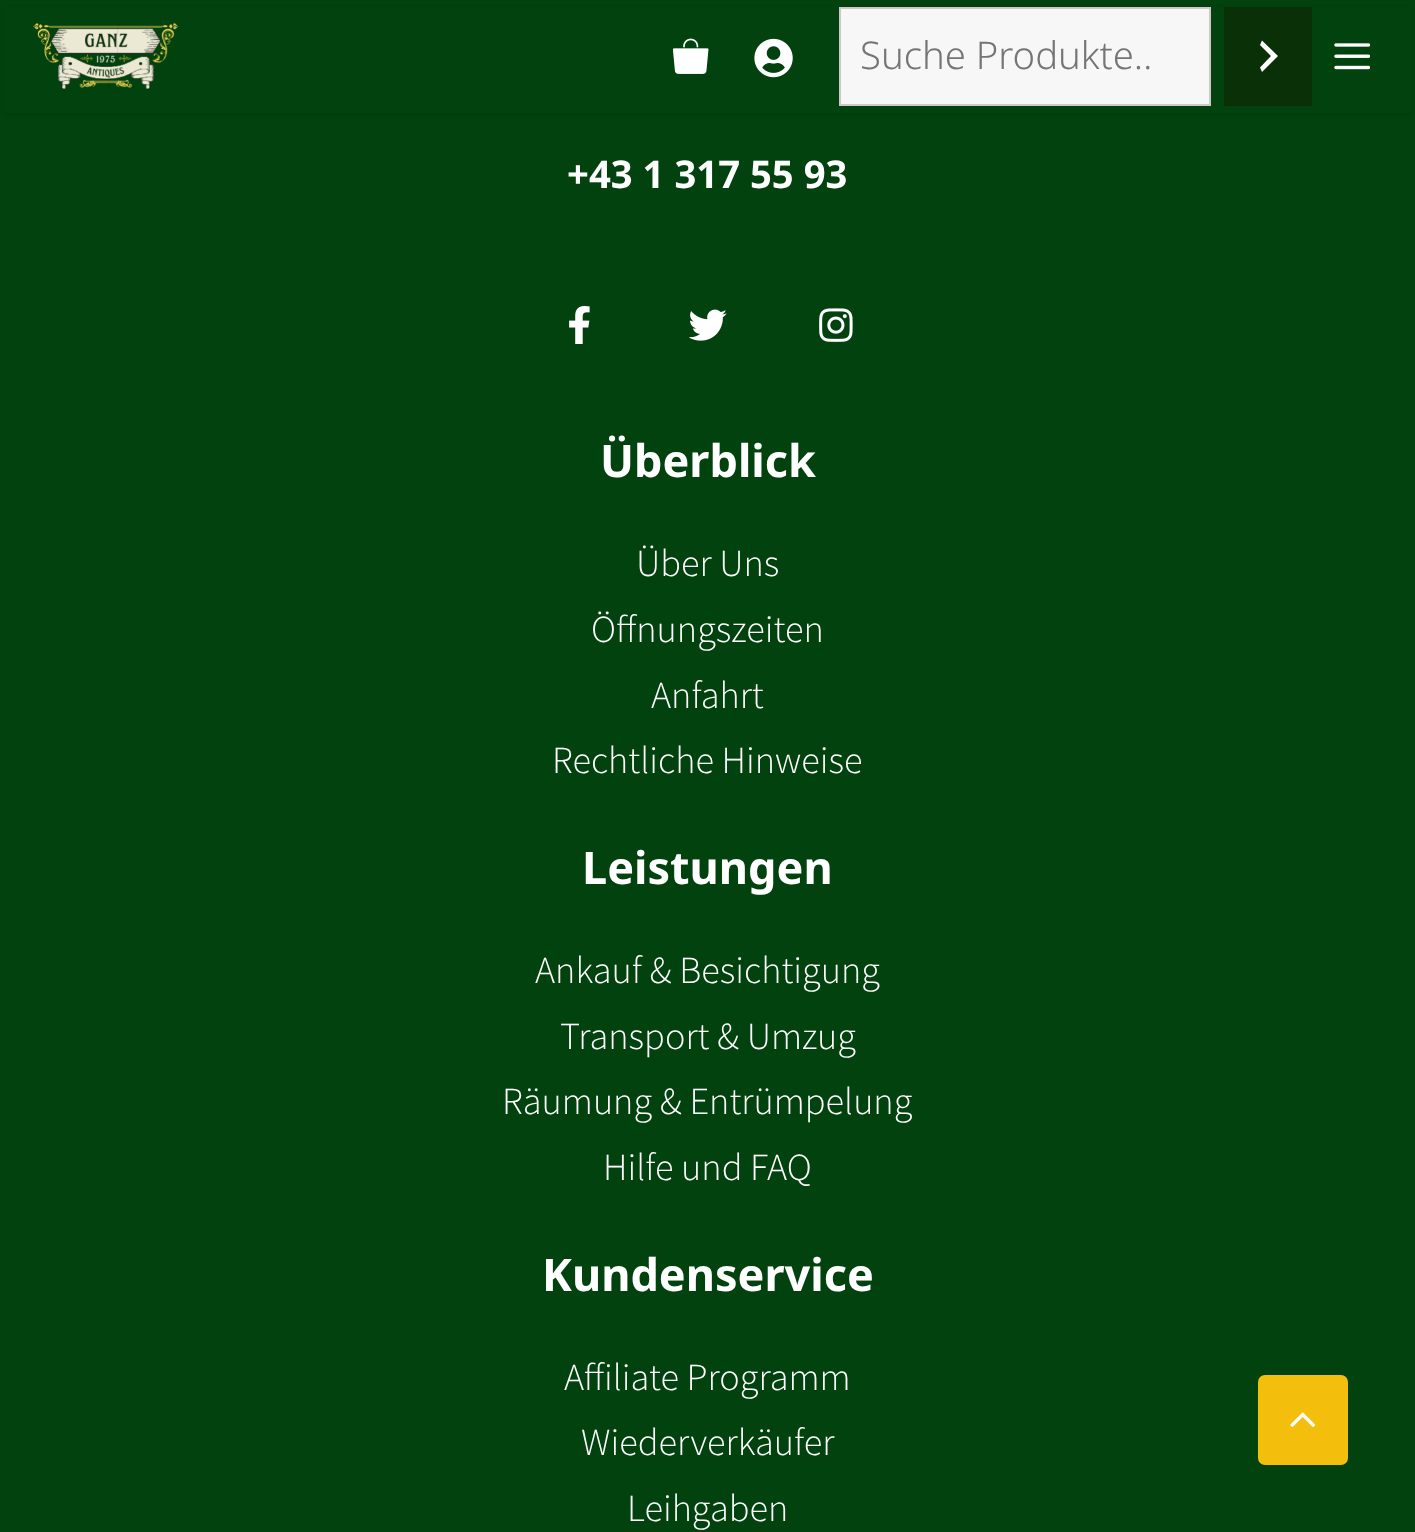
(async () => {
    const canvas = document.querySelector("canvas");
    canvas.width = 1415;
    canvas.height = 1532;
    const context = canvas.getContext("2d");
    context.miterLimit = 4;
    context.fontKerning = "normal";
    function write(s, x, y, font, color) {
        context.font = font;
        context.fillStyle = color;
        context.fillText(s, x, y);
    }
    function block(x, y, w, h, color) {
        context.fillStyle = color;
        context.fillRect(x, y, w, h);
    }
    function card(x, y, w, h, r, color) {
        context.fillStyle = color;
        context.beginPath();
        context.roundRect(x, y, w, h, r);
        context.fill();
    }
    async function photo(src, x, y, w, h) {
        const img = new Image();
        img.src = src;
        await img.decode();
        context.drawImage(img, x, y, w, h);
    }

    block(0, 0, 1415, 1532, "rgb(2, 66, 14)");
    context.fillStyle = "rgba(0, 0, 0, 0.2)";
    context.filter = "blur(2px)";
    context.beginPath();
    context.rect(5, 9, 1406, 104);
    context.fill();
    context.filter = "none";
    block(3, 7, 1410, 106, "rgb(2, 66, 14)");
    await photo("media/1.png", 33, 22, 146, 68);
    await photo("media/2.png", 673, 38, 36, 36);
    await photo("media/3.png", 754, 38, 39, 40);
    context.fillStyle = "rgb(247, 247, 247)";
    context.beginPath();
    context.rect(840, 8, 370, 97);
    context.fill();
    context.strokeStyle = "rgb(206, 200, 200)";
    context.lineWidth = 2;
    context.stroke();
    context.save();
    context.beginPath();
    context.rect(860, 29, 294, 52);
    context.clip();
    write("Suche Produkte…", 860, 69, "300 38.25px Noto Sans", "rgb(117, 117, 117)");
    context.restore();
    block(1224, 7, 88, 99, "rgb(10, 48, 8)");
    context.fillStyle = "rgb(255, 255, 255)";
    context.beginPath();
    context.moveTo(1260, 67.5);
    context.lineTo(1271, 56);
    context.lineTo(1260, 45);
    context.lineTo(1262, 40.5);
    context.lineTo(1278, 56);
    context.lineTo(1262, 72);
    context.closePath();
    context.fill();
    await photo("media/4.png", 1334, 43, 36, 27);
    write("+43 1 317 55 93", 567, 188, "bold 38.25px Noto Sans", "rgb(255, 255, 255)");
    await photo("media/5.png", 569, 306, 21, 38);
    await photo("media/6.png", 689, 309, 38, 32);
    await photo("media/7.png", 819, 308, 34, 34);
    write("Überblick", 600, 477, "bold 45px Noto Sans", "rgb(255, 255, 255)");
    write("Über Uns", 636, 576, "300 38.25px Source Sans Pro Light", "rgb(255, 255, 255)");
    write("Öffnungszeiten", 591, 642, "300 38.25px Source Sans Pro Light", "rgb(255, 255, 255)");
    write("Anfahrt", 651, 708, "300 38.25px Source Sans Pro Light", "rgb(255, 255, 255)");
    write("Rechtliche Hinweise", 552, 773, "300 38.25px Source Sans Pro Light", "rgb(255, 255, 255)");
    write("Leistungen", 582, 884, "bold 45px Noto Sans", "rgb(255, 255, 255)");
    write("Ankauf & Besichtigung", 535, 983, "300 38.25px Source Sans Pro Light", "rgb(255, 255, 255)");
    write("Transport & Umzug", 560, 1049, "300 38.25px Source Sans Pro Light", "rgb(255, 255, 255)");
    write("Räumung & Entrümpelung", 502, 1114, "300 38.25px Source Sans Pro Light", "rgb(255, 255, 255)");
    write("Hilfe und FAQ", 603, 1180, "300 38.25px Source Sans Pro Light", "rgb(255, 255, 255)");
    write("Kundenservice", 542, 1291, "bold 45px Noto Sans", "rgb(255, 255, 255)");
    write("Affiliate Programm", 564, 1390, "300 38.25px Source Sans Pro Light", "rgb(255, 255, 255)");
    write("Wiederverkäufer", 581, 1455, "300 38.25px Source Sans Pro Light", "rgb(255, 255, 255)");
    write("Leihgaben", 627, 1521, "300 38.25px Source Sans Pro Light", "rgb(255, 255, 255)");
    card(1258, 1375, 90, 90, 7, "rgb(244, 190, 13)");
    await photo("media/8.png", 1290, 1412, 26, 15);
})();
